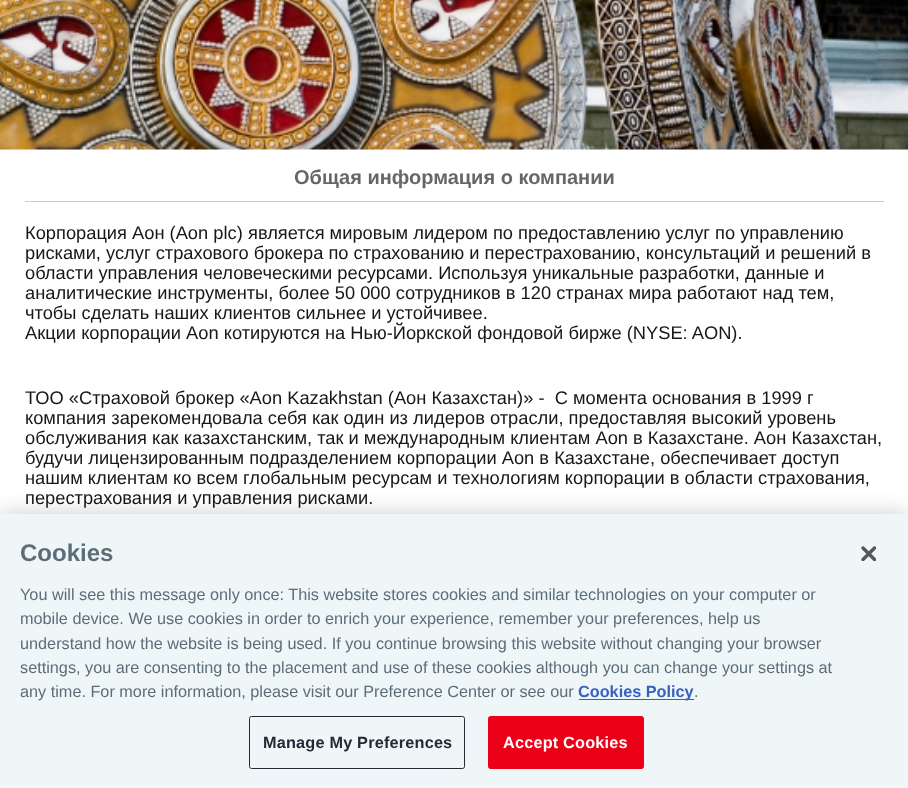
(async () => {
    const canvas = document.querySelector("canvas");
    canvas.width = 908;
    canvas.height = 788;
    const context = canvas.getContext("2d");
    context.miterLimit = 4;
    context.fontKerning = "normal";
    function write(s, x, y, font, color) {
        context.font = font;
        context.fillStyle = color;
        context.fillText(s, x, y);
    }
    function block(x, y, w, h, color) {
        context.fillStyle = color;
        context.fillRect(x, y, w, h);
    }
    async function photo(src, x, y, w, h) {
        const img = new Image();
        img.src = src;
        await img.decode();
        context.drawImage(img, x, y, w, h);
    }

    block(0, 0, 908, 788, "rgb(255, 255, 255)");
    await photo("media/1.png", 0, 0, 908, 150);
    block(25, 201, 859, 1, "rgb(204, 204, 204)");
    write("Общая информация о компании", 294, 184, "bold 20px Liberation Sans", "rgb(102, 102, 102)");
    write("Корпорация Аон (Aon plc)", 25, 239, "18.3px Liberation Sans", "rgb(23, 23, 23)");
    write("является мировым лидером по предоставлению услуг по управлению", 248, 239, "18.3px Liberation Sans", "rgb(23, 23, 23)");
    write("рисками, услуг страхового брокера по страхованию и перестрахованию, консультаций и решений в", 25, 259, "18.3px Liberation Sans", "rgb(23, 23, 23)");
    write("области управления человеческими ресурсами. Используя уникальные разработки, данные и", 25, 279, "18.3px Liberation Sans", "rgb(23, 23, 23)");
    write("аналитические инструменты, более 50 000 сотрудников в 120 странах мира работают над тем,", 25, 299, "18.3px Liberation Sans", "rgb(23, 23, 23)");
    write("чтобы сделать наших клиентов сильнее и устойчивее.", 25, 319, "18.3px Liberation Sans", "rgb(23, 23, 23)");
    write("Акции корпорации Aon котируются на Нью-Йоркской фондовой бирже (NYSE: AON).", 25, 339, "18.3px Liberation Sans", "rgb(23, 23, 23)");
    write("ТОО «Страховой брокер «Aon Kazakhstan (Аон Казахстан)» -  С момента основания в 1999 г", 25, 404, "18.3px Liberation Sans", "rgb(23, 23, 23)");
    write("компания зарекомендовала себя как один из лидеров отрасли, предоставляя высокий уровень", 25, 424, "18.3px Liberation Sans", "rgb(23, 23, 23)");
    write("обслуживания как казахстанским, так и международным клиентам Aon в Казахстане. Аон Казахстан,", 25, 444, "18.3px Liberation Sans", "rgb(23, 23, 23)");
    write("будучи лицензированным подразделением корпорации Aon в Казахстане, обеспечивает доступ", 25, 464, "18.3px Liberation Sans", "rgb(23, 23, 23)");
    write("нашим клиентам ко всем глобальным ресурсам и технологиям корпорации в области страхования,", 25, 484, "18.3px Liberation Sans", "rgb(23, 23, 23)");
    write("перестрахования и управления рисками.", 25, 504, "18.3px Liberation Sans", "rgb(23, 23, 23)");
    context.fillStyle = "rgba(0, 0, 0, 0.2)";
    context.filter = "blur(11px)";
    context.beginPath();
    context.rect(0, 514, 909, 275);
    context.fill();
    context.filter = "none";
    block(0, 514, 908, 274, "rgb(238, 246, 247)");
    write("Cookies", 20, 561, "bold 24px Liberation Sans", "rgb(93, 109, 120)");
    write("You will see this message only once: This website stores cookies and similar technologies on your computer or", 20, 600, "16.25px Liberation Sans", "rgb(93, 109, 120)");
    write("mobile device. We use cookies in order to enrich your experience, remember your preferences, help us", 20, 624, "16.25px Liberation Sans", "rgb(93, 109, 120)");
    write("understand how the website is being used. If you continue browsing this website without changing your browser", 20, 649, "16.25px Liberation Sans", "rgb(93, 109, 120)");
    write("settings, you are consenting to the placement and use of these cookies although you can change your settings at", 20, 673, "16.25px Liberation Sans", "rgb(93, 109, 120)");
    write("any time. For more information, please visit our Preference Center or see our", 20, 697, "16.25px Liberation Sans", "rgb(93, 109, 120)");
    block(579, 699, 115, 1, "rgb(56, 96, 190)");
    write("Cookies Policy", 578, 697, "bold 16.25px Liberation Sans", "rgb(56, 96, 190)");
    write(".", 694, 697, "16.25px Liberation Sans", "rgb(93, 109, 120)");
    context.beginPath();
    context.roundRect(249.5, 716.5, 215, 52, 2);
    context.strokeStyle = "rgb(38, 40, 54)";
    context.stroke();
    context.letterSpacing = "0.2px";
    write("Manage My Preferences", 263, 748, "bold 16.25px Liberation Sans", "rgb(38, 40, 54)");
    context.fillStyle = "rgb(235, 0, 23)";
    context.beginPath();
    context.roundRect(488.5, 716.5, 155, 52, 2);
    context.fill();
    context.strokeStyle = "rgb(235, 0, 23)";
    context.stroke();
    write("Accept Cookies", 503, 748, "bold 16.25px Liberation Sans", "rgb(255, 255, 255)");
    await photo("media/2.png", 861, 546, 15, 15);
})();
